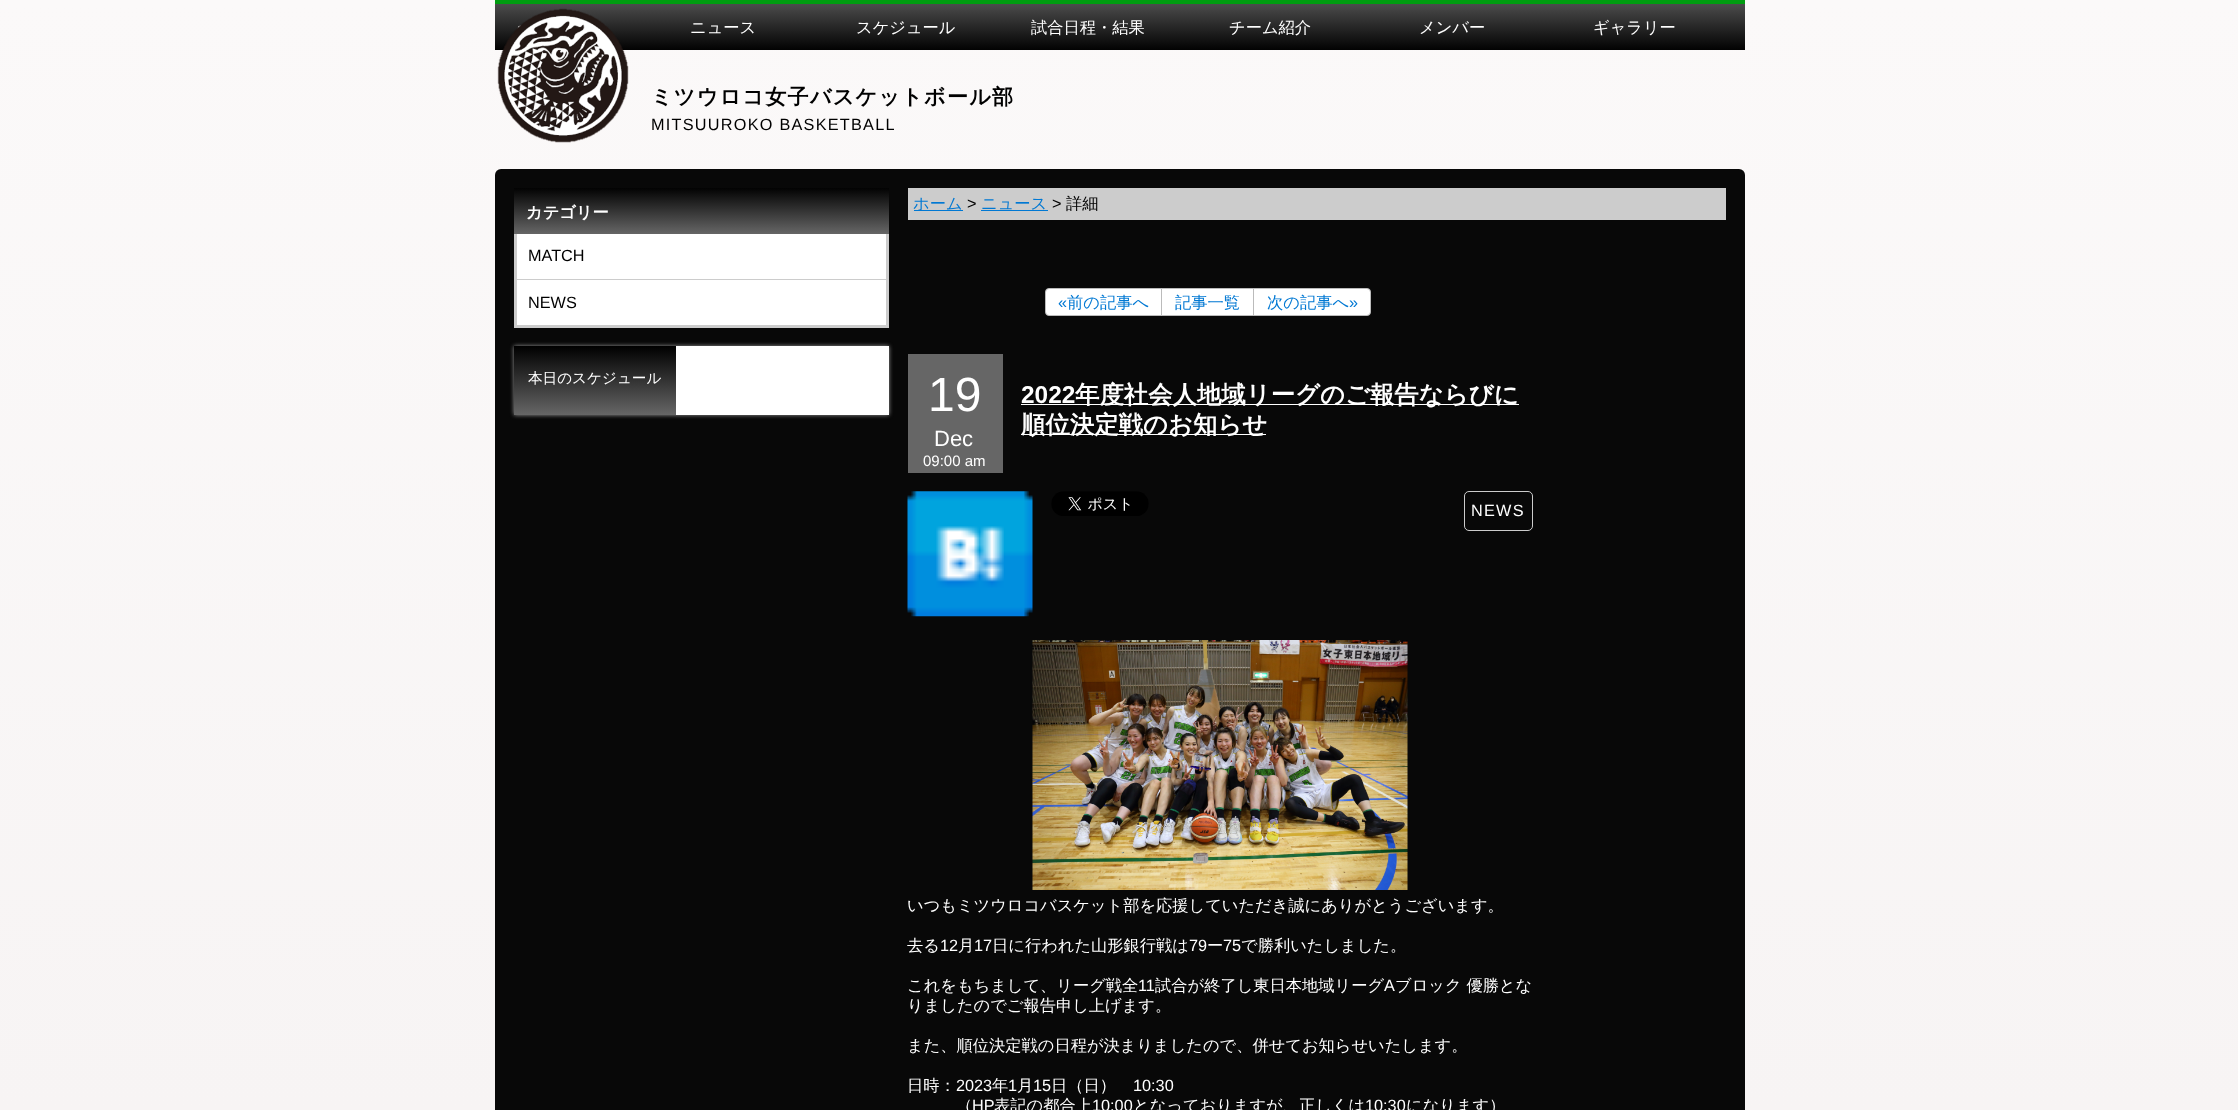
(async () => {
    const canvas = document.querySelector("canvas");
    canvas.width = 2238;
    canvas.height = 1110;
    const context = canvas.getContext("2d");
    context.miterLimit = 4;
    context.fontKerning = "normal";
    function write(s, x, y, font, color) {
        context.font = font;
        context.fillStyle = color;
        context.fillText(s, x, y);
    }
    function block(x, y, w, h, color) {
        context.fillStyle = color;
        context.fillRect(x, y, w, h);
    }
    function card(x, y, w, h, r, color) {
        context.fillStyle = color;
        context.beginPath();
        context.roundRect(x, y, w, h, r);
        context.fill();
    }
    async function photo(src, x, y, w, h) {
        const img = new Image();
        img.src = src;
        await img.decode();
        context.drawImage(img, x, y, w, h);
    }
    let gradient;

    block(0, 0, 2238, 1110, "rgb(255, 255, 255)");
    gradient = context.createLinearGradient(1119, 0, 1119, 1110);
    gradient.addColorStop(0, "rgb(251, 249, 249)");
    gradient.addColorStop(1, "rgb(247, 244, 244)");
    context.fillStyle = gradient;
    context.fillRect(0, 0, 2238, 1110);
    gradient = context.createLinearGradient(1120, 3.7, 1120, 50);
    gradient.addColorStop(0, "rgb(76, 76, 76)");
    gradient.addColorStop(1, "rgb(2, 2, 2)");
    context.fillStyle = gradient;
    context.fillRect(495, 4, 1250, 46);
    await photo("media/1.png", 497, 8, 132, 135);
    block(495, 0, 1250, 4, "rgb(0, 156, 16)");
    write("ニュース", 690, 33, "500 16.25px WenQuanYi Zen Hei", "rgb(255, 255, 255)");
    write("スケジュール", 856, 33, "500 16.25px WenQuanYi Zen Hei", "rgb(255, 255, 255)");
    write("試合日程・結果", 1031, 33, "500 16.25px WenQuanYi Zen Hei", "rgb(255, 255, 255)");
    write("チーム紹介", 1229, 33, "500 16.25px WenQuanYi Zen Hei", "rgb(255, 255, 255)");
    write("メンバー", 1419, 33, "500 16.25px WenQuanYi Zen Hei", "rgb(255, 255, 255)");
    write("ギャラリー", 1593, 33, "500 16.25px WenQuanYi Zen Hei", "rgb(255, 255, 255)");
    context.letterSpacing = "1.25px";
    write("ミツウロコ女子バスケットボール部", 651, 104, "bold 21.1px WenQuanYi Zen Hei", "rgb(0, 0, 0)");
    write("MITSUUROKO BASKETBALL", 651, 130, "16.25px Liberation Sans", "rgb(0, 0, 0)");
    card(495, 169, 1250, 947, 6, "rgb(8, 8, 8)");
    block(517, 234, 369, 91, "rgb(255, 255, 255)");
    gradient = context.createLinearGradient(701, 187, 701, 234);
    gradient.addColorStop(0, "rgb(0, 0, 0)");
    gradient.addColorStop(1, "rgb(102, 102, 102)");
    context.fillStyle = gradient;
    context.fillRect(514, 188, 375, 46);
    context.letterSpacing = "0px";
    write("カテゴリー", 526, 218, "bold 16.25px WenQuanYi Zen Hei", "rgb(255, 255, 255)");
    block(886, 234, 3, 94, "rgb(204, 204, 204)");
    block(514, 325, 375, 3, "rgb(204, 204, 204)");
    block(514, 234, 3, 94, "rgb(204, 204, 204)");
    block(516, 279, 370, 1, "rgb(204, 204, 204)");
    write("MATCH", 528, 261, "16.25px Liberation Sans", "rgb(0, 0, 0)");
    write("NEWS", 528, 308, "16.25px Liberation Sans", "rgb(0, 0, 0)");
    block(676, 346, 213, 69, "rgb(255, 255, 255)");
    context.save();
    context.beginPath();
    context.moveTo(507, 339);
    context.lineTo(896, 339);
    context.lineTo(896, 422);
    context.lineTo(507, 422);
    context.closePath();
    context.moveTo(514, 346);
    context.lineTo(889, 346);
    context.lineTo(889, 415);
    context.lineTo(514, 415);
    context.closePath();
    context.clip("evenodd");
    context.fillStyle = "rgb(153, 153, 153)";
    context.filter = "blur(2px)";
    context.beginPath();
    context.rect(514, 346, 375, 69);
    context.fill();
    context.filter = "none";
    context.restore();
    gradient = context.createLinearGradient(595, 346, 595, 415);
    gradient.addColorStop(0, "rgb(0, 0, 0)");
    gradient.addColorStop(1, "rgb(102, 102, 102)");
    context.fillStyle = gradient;
    context.fillRect(514, 346, 162, 69);
    write("本日のスケジュール", 528, 383, "500 14.6px WenQuanYi Zen Hei", "rgb(255, 255, 255)");
    block(908, 188, 818, 32, "rgb(204, 204, 204)");
    block(914, 210, 49, 1, "rgb(0, 120, 211)");
    write("ホーム", 913, 209, "500 16.25px WenQuanYi Zen Hei", "rgb(0, 120, 211)");
    write(">", 967, 209, "16.25px Liberation Sans", "rgb(0, 0, 0)");
    write("ニュース", 981, 209, "500 16.25px WenQuanYi Zen Hei", "rgb(0, 120, 211)");
    block(981, 210, 67, 1, "rgb(0, 120, 211)");
    write(">", 1052, 209, "16.25px Liberation Sans", "rgb(0, 0, 0)");
    write("詳細", 1066, 209, "500 16.25px WenQuanYi Zen Hei", "rgb(0, 0, 0)");
    context.fillStyle = "rgb(255, 255, 255)";
    context.beginPath();
    context.roundRect(1045.5, 288.5, 117, 27, [3.5, 0, 0, 3.5]);
    context.fill();
    context.strokeStyle = "rgb(187, 187, 187)";
    context.stroke();
    write("«", 1058, 308, "16.25px Liberation Sans", "rgb(0, 120, 211)");
    write("前の記事へ", 1067, 308, "500 16.25px WenQuanYi Zen Hei", "rgb(0, 120, 211)");
    context.fillStyle = "rgb(255, 255, 255)";
    context.beginPath();
    context.rect(1161.5, 288.5, 92, 27);
    context.fill();
    context.stroke();
    write("記事一覧", 1175, 308, "500 16.25px WenQuanYi Zen Hei", "rgb(0, 120, 211)");
    context.fillStyle = "rgb(255, 255, 255)";
    context.beginPath();
    context.roundRect(1253.5, 288.5, 117, 27, [0, 3.5, 3.5, 0]);
    context.fill();
    context.stroke();
    write("次の記事へ", 1267, 308, "500 16.25px WenQuanYi Zen Hei", "rgb(0, 120, 211)");
    write("»", 1349, 308, "16.25px Liberation Sans", "rgb(0, 120, 211)");
    block(908, 354, 95, 119, "rgb(102, 102, 102)");
    write("19", 928, 411, "48px Liberation Sans", "rgb(255, 255, 255)");
    write("Dec", 934, 446, "22px Liberation Sans", "rgb(255, 255, 255)");
    write("09:00 am", 923, 466, "15px Liberation Sans", "rgb(255, 255, 255)");
    write("2022", 1021, 403, "bold 24.4px Liberation Sans", "rgb(255, 255, 255)");
    block(1021, 404, 498, 1, "rgb(255, 255, 255)");
    write("年度社会人地域リーグのご報告ならびに", 1075, 403, "bold 24.4px WenQuanYi Zen Hei", "rgb(255, 255, 255)");
    block(1021, 434, 245, 1, "rgb(255, 255, 255)");
    write("順位決定戦のお知らせ", 1021, 433, "bold 24.4px WenQuanYi Zen Hei", "rgb(255, 255, 255)");
    await photo("media/2.png", 907, 491, 126, 126);
    await photo("media/3.png", 1051, 491, 98, 25);
    context.beginPath();
    context.roundRect(1464.5, 491.5, 68, 39, 4.5);
    context.strokeStyle = "rgb(204, 204, 204)";
    context.stroke();
    context.letterSpacing = "1.25px";
    write("NEWS", 1471, 516, "16.25px Liberation Sans", "rgb(255, 255, 255)");
    await photo("media/4.png", 1032, 640, 376, 250);
    context.letterSpacing = "0px";
    write("いつもミツウロコバスケット部を応援していただき誠にありがとうございます。", 907, 911, "500 16.25px WenQuanYi Zen Hei", "rgb(255, 255, 255)");
    write("去る", 907, 951, "500 16.25px WenQuanYi Zen Hei", "rgb(255, 255, 255)");
    write("12", 940, 951, "16.25px Liberation Sans", "rgb(255, 255, 255)");
    write("月", 958, 951, "500 16.25px WenQuanYi Zen Hei", "rgb(255, 255, 255)");
    write("17", 974, 951, "16.25px Liberation Sans", "rgb(255, 255, 255)");
    write("日に行われた山形銀行戦は", 992, 951, "500 16.25px WenQuanYi Zen Hei", "rgb(255, 255, 255)");
    write("79", 1189, 951, "16.25px Liberation Sans", "rgb(255, 255, 255)");
    write("ー", 1207, 951, "500 16.25px WenQuanYi Zen Hei", "rgb(255, 255, 255)");
    write("75", 1223, 951, "16.25px Liberation Sans", "rgb(255, 255, 255)");
    write("で勝利いたしました。", 1241, 951, "500 16.25px WenQuanYi Zen Hei", "rgb(255, 255, 255)");
    write("これをもちまして、リーグ戦全", 907, 991, "500 16.25px WenQuanYi Zen Hei", "rgb(255, 255, 255)");
    write("11", 1138, 991, "16.25px Liberation Sans", "rgb(255, 255, 255)");
    write("試合が終了し東日本地域リーグ", 1155, 991, "500 16.25px WenQuanYi Zen Hei", "rgb(255, 255, 255)");
    write("A", 1384, 991, "16.25px Liberation Sans", "rgb(255, 255, 255)");
    write("ブロック 優勝とな", 1395, 991, "500 16.25px WenQuanYi Zen Hei", "rgb(255, 255, 255)");
    write("りましたのでご報告申し上げます。", 907, 1011, "500 16.25px WenQuanYi Zen Hei", "rgb(255, 255, 255)");
    write("また、順位決定戦の日程が決まりましたので、併せてお知らせいたします。", 907, 1051, "500 16.25px WenQuanYi Zen Hei", "rgb(255, 255, 255)");
    write("日時：", 907, 1091, "500 16.25px WenQuanYi Zen Hei", "rgb(255, 255, 255)");
    write("2023", 956, 1091, "16.25px Liberation Sans", "rgb(255, 255, 255)");
    write("年", 992, 1091, "500 16.25px WenQuanYi Zen Hei", "rgb(255, 255, 255)");
    write("1", 1008, 1091, "16.25px Liberation Sans", "rgb(255, 255, 255)");
    write("月", 1017, 1091, "500 16.25px WenQuanYi Zen Hei", "rgb(255, 255, 255)");
    write("15", 1033, 1091, "16.25px Liberation Sans", "rgb(255, 255, 255)");
    write("日（日）", 1051, 1091, "500 16.25px WenQuanYi Zen Hei", "rgb(255, 255, 255)");
    write("10:30", 1133, 1091, "16.25px Liberation Sans", "rgb(255, 255, 255)");
    write("（", 956, 1111, "500 16.25px WenQuanYi Zen Hei", "rgb(255, 255, 255)");
    write("HP", 972, 1111, "16.25px Liberation Sans", "rgb(255, 255, 255)");
    write("表記の都合上", 994, 1111, "500 16.25px WenQuanYi Zen Hei", "rgb(255, 255, 255)");
    write("10:00", 1092, 1111, "16.25px Liberation Sans", "rgb(255, 255, 255)");
    write("となっておりますが、正しくは", 1133, 1111, "500 16.25px WenQuanYi Zen Hei", "rgb(255, 255, 255)");
    write("10:30", 1365, 1111, "16.25px Liberation Sans", "rgb(255, 255, 255)");
    write("になります）", 1406, 1111, "500 16.25px WenQuanYi Zen Hei", "rgb(255, 255, 255)");
})();
